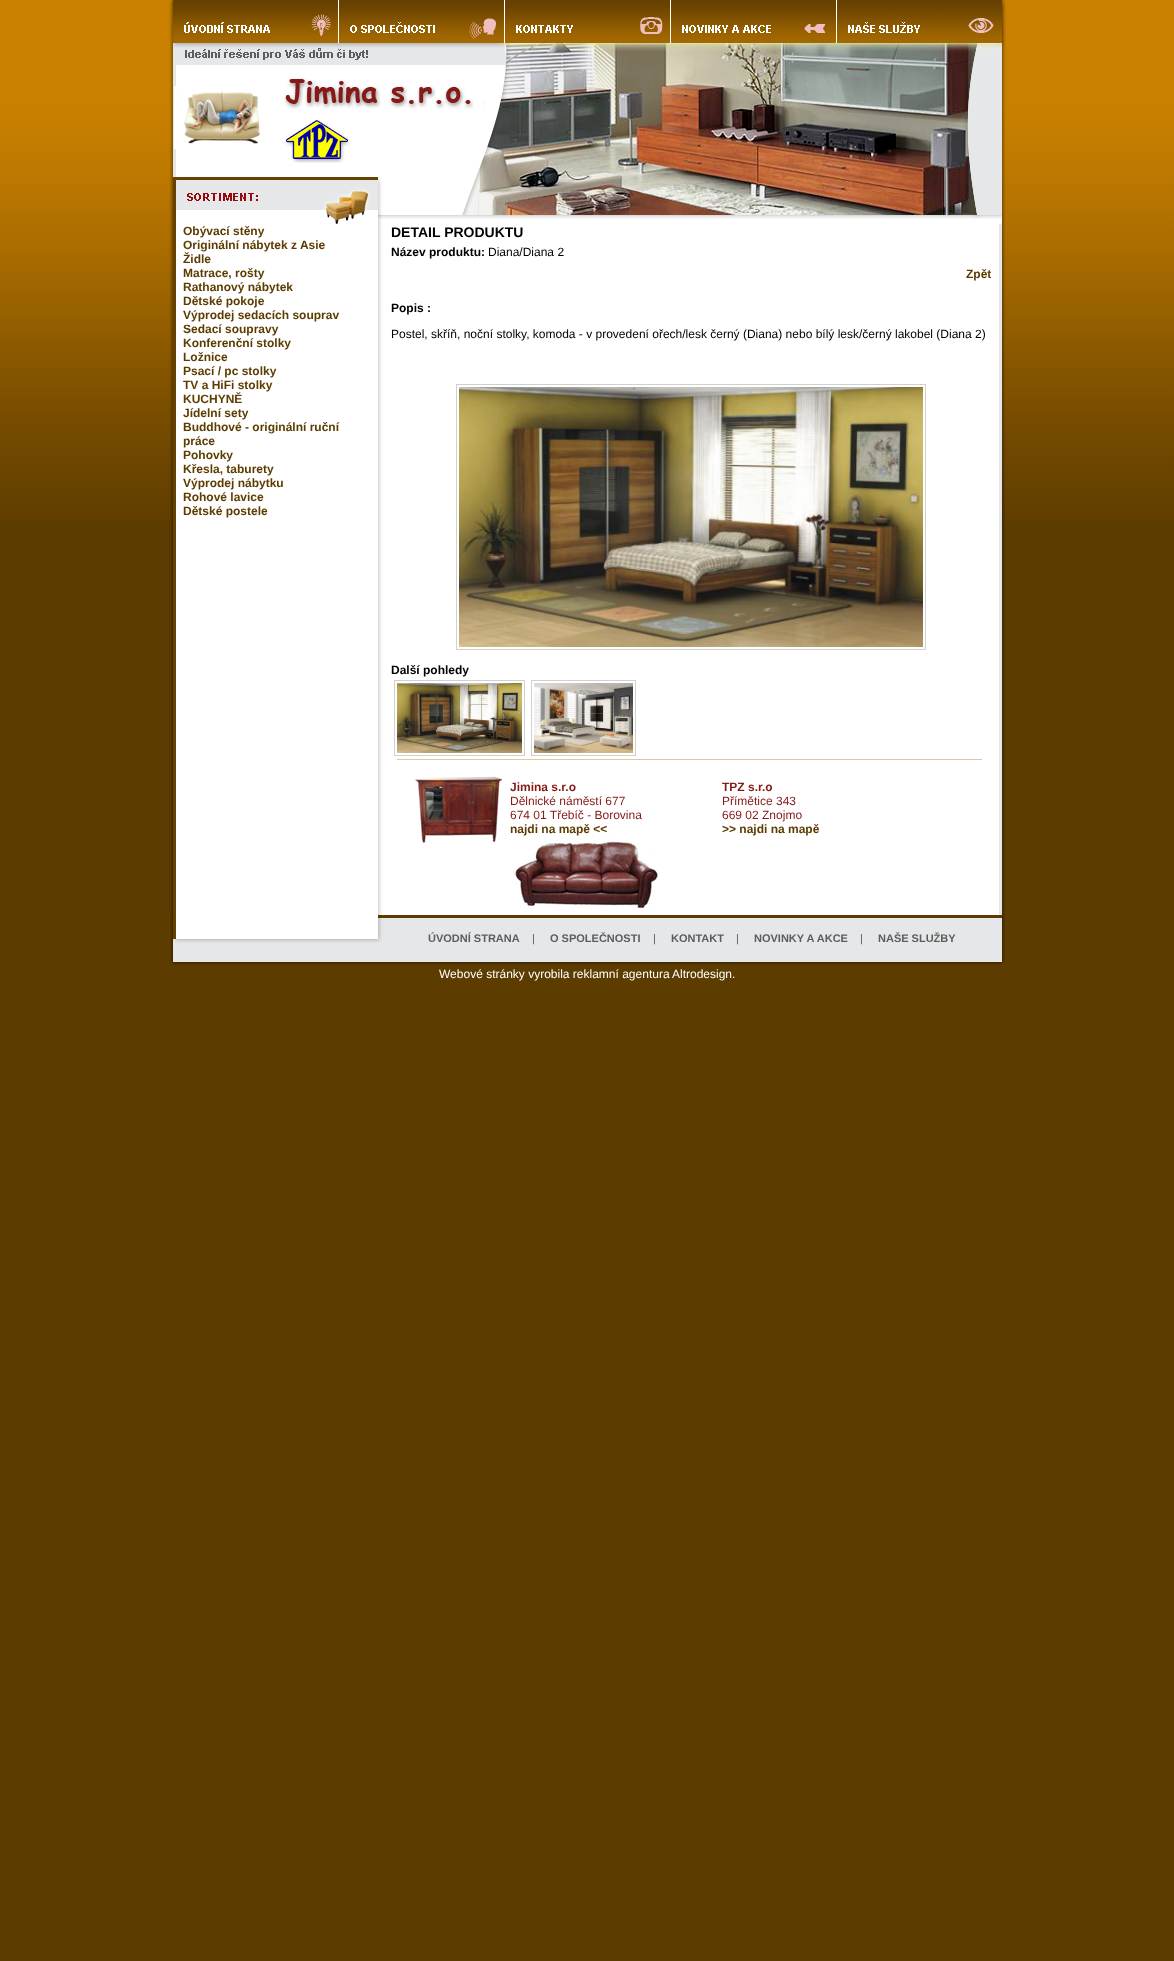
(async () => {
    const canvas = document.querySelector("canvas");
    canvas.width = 1174;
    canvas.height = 1961;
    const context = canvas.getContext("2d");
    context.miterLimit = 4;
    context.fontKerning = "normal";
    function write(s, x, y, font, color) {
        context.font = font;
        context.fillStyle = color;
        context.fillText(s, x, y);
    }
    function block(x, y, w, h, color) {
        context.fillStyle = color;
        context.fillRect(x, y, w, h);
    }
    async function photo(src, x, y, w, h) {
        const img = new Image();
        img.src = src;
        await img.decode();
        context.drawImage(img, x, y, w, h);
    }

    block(0, 0, 1174, 1961, "rgb(93, 60, 0)");
    await photo("media/1.png", 0, 0, 1174, 520);
    await photo("media/2.png", 167, 66, 840, 849);
    await photo("media/3.png", 167, 0, 6, 519);
    block(338, 0, 499, 43, "rgb(255, 255, 255)");
    await photo("media/4.png", 173, 0, 165, 43);
    await photo("media/5.png", 339, 0, 165, 43);
    await photo("media/6.png", 505, 0, 165, 43);
    await photo("media/7.png", 671, 0, 165, 43);
    await photo("media/8.png", 837, 0, 165, 43);
    await photo("media/9.png", 173, 43, 829, 23);
    await photo("media/10.png", 173, 66, 826, 111);
    await photo("media/11.png", 284, 78, 190, 85);
    await photo("media/12.png", 176, 177, 826, 47);
    write("Obývací stěny", 183, 235, "bold 12px Liberation Sans", "rgb(93, 60, 0)");
    write("Originální nábytek z Asie", 183, 249, "bold 12px Liberation Sans", "rgb(93, 60, 0)");
    write("Židle", 183, 263, "bold 12px Liberation Sans", "rgb(93, 60, 0)");
    write("Matrace, rošty", 183, 277, "bold 12px Liberation Sans", "rgb(93, 60, 0)");
    write("Rathanový nábytek", 183, 291, "bold 12px Liberation Sans", "rgb(93, 60, 0)");
    write("Dětské pokoje", 183, 305, "bold 12px Liberation Sans", "rgb(93, 60, 0)");
    write("Výprodej sedacích souprav", 183, 319, "bold 12px Liberation Sans", "rgb(93, 60, 0)");
    write("Sedací soupravy", 183, 333, "bold 12px Liberation Sans", "rgb(93, 60, 0)");
    write("Konferenční stolky", 183, 347, "bold 12px Liberation Sans", "rgb(93, 60, 0)");
    write("Ložnice", 183, 361, "bold 12px Liberation Sans", "rgb(93, 60, 0)");
    write("Psací / pc stolky", 183, 375, "bold 12px Liberation Sans", "rgb(93, 60, 0)");
    write("TV a HiFi stolky", 183, 389, "bold 12px Liberation Sans", "rgb(93, 60, 0)");
    write("KUCHYNĚ", 183, 403, "bold 12px Liberation Sans", "rgb(93, 60, 0)");
    write("Jídelní sety", 183, 417, "bold 12px Liberation Sans", "rgb(93, 60, 0)");
    write("Buddhové - originální ruční", 183, 431, "bold 12px Liberation Sans", "rgb(93, 60, 0)");
    write("práce", 183, 445, "bold 12px Liberation Sans", "rgb(93, 60, 0)");
    write("Pohovky", 183, 459, "bold 12px Liberation Sans", "rgb(93, 60, 0)");
    write("Křesla, taburety", 183, 473, "bold 12px Liberation Sans", "rgb(93, 60, 0)");
    write("Výprodej nábytku", 183, 487, "bold 12px Liberation Sans", "rgb(93, 60, 0)");
    write("Rohové lavice", 183, 501, "bold 12px Liberation Sans", "rgb(93, 60, 0)");
    write("Dětské postele", 183, 515, "bold 12px Liberation Sans", "rgb(93, 60, 0)");
    write("DETAIL PRODUKTU", 391, 237, "bold 14px Liberation Sans", "rgb(0, 0, 0)");
    write("Název produktu:", 391, 256, "bold 12px Liberation Sans", "rgb(0, 0, 0)");
    write("Diana/Diana 2", 488, 256, "12px Liberation Sans", "rgb(0, 0, 0)");
    write("Zpět", 966, 278, "bold 12px Liberation Sans", "rgb(93, 60, 0)");
    write("Popis :", 391, 312, "bold 12px Liberation Sans", "rgb(0, 0, 0)");
    write("Postel, skříň, noční stolky, komoda - v provedení ořech/lesk černý (Diana) nebo bílý lesk/černý lakobel (Diana 2)", 391, 338, "12px Liberation Sans", "rgb(0, 0, 0)");
    context.strokeStyle = "rgb(208, 208, 208)";
    context.strokeRect(456.5, 384.5, 469, 265);
    await photo("media/13.png", 459, 387, 464, 260);
    write("Další pohledy", 391, 674, "bold 12px Liberation Sans", "rgb(0, 0, 0)");
    context.strokeRect(394.5, 680.5, 130, 75);
    context.strokeRect(531.5, 680.5, 104, 75);
    await photo("media/14.png", 397, 683, 125, 70);
    await photo("media/15.png", 534, 683, 99, 70);
    block(397, 759, 585, 1, "rgb(221, 203, 157)");
    await photo("media/16.png", 413, 776, 90, 67);
    write("Jimina s.r.o", 510, 791, "bold 12px Liberation Sans", "rgb(133, 26, 23)");
    write("Dělnické náměstí 677", 510, 805, "12px Liberation Sans", "rgb(133, 26, 23)");
    write("674 01 Třebíč - Borovina", 510, 819, "12px Liberation Sans", "rgb(133, 26, 23)");
    write("najdi na mapě <<", 510, 833, "bold 12px Liberation Sans", "rgb(93, 60, 0)");
    write("TPZ s.r.o", 722, 791, "bold 12px Liberation Sans", "rgb(133, 26, 23)");
    write("Přímětice 343", 722, 805, "12px Liberation Sans", "rgb(133, 26, 23)");
    write("669 02 Znojmo", 722, 819, "12px Liberation Sans", "rgb(133, 26, 23)");
    write(">> najdi na mapě", 722, 833, "bold 12px Liberation Sans", "rgb(93, 60, 0)");
    await photo("media/17.png", 515, 838, 143, 71);
    await photo("media/18.png", 1002, 0, 5, 522);
    await photo("media/19.png", 170, 915, 835, 50);
    write("ÚVODNÍ STRANA", 428, 942, "bold 11px Liberation Sans", "rgb(93, 93, 93)");
    write("|", 532, 942, "11px Liberation Sans", "rgb(93, 93, 93)");
    write("O SPOLEČNOSTI", 550, 942, "bold 11px Liberation Sans", "rgb(93, 93, 93)");
    write("|", 653, 942, "11px Liberation Sans", "rgb(93, 93, 93)");
    write("KONTAKT", 671, 942, "bold 11px Liberation Sans", "rgb(93, 93, 93)");
    write("|", 736, 942, "11px Liberation Sans", "rgb(93, 93, 93)");
    write("NOVINKY A AKCE", 754, 942, "bold 11px Liberation Sans", "rgb(93, 93, 93)");
    write("|", 860, 942, "11px Liberation Sans", "rgb(93, 93, 93)");
    write("NAŠE SLUŽBY", 878, 942, "bold 11px Liberation Sans", "rgb(93, 93, 93)");
    write("Webové stránky vyrobila reklamní agentura", 439, 978, "12px Liberation Sans", "rgb(255, 255, 255)");
    write("Altrodesign.", 672, 978, "12px Liberation Sans", "rgb(255, 255, 255)");
})();
